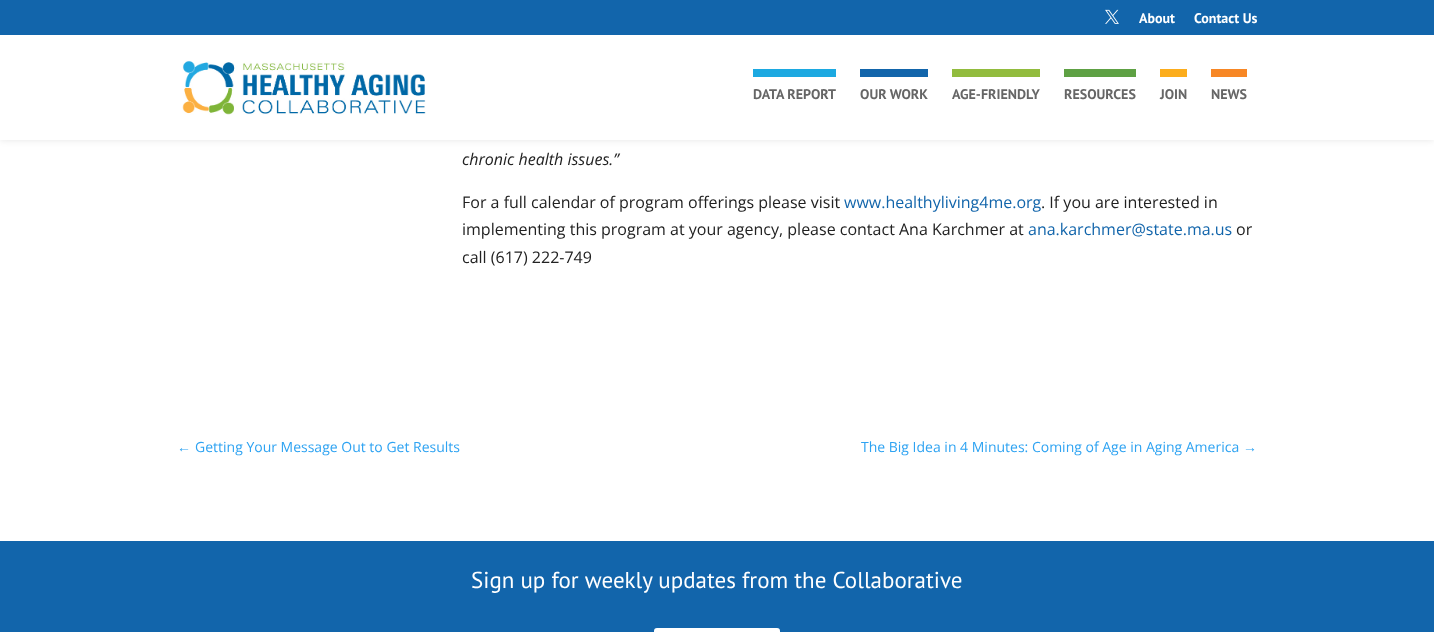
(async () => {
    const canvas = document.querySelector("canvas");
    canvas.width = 1434;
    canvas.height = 632;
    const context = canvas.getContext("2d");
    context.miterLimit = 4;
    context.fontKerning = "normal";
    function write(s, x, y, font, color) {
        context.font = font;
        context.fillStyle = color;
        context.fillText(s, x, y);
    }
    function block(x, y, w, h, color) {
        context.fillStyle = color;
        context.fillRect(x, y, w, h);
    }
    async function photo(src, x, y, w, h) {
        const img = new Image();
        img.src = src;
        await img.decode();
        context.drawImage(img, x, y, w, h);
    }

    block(0, 0, 1434, 632, "rgb(255, 255, 255)");
    context.fillStyle = "rgba(0, 0, 0, 0.1)";
    context.filter = "blur(3.5px)";
    context.beginPath();
    context.rect(0, 35, 1434, 105);
    context.fill();
    context.filter = "none";
    block(0, 0, 1434, 35, "rgb(18, 101, 171)");
    await photo("media/1.png", 1105, 9, 14, 15);
    write("About", 1139, 23, "bold 14px PT Sans", "rgb(255, 255, 255)");
    write("Contact Us", 1194, 23, "bold 14px PT Sans", "rgb(255, 255, 255)");
    block(0, 35, 1434, 105, "rgb(255, 255, 255)");
    await photo("media/2.png", 182, 60, 244, 55);
    block(753, 69, 83, 8, "rgb(28, 169, 225)");
    write("DATA REPORT", 753, 99, "bold 14px PT Sans", "rgb(102, 102, 102)");
    block(860, 69, 68, 8, "rgb(18, 101, 171)");
    write("OUR WORK", 860, 99, "bold 14px PT Sans", "rgb(102, 102, 102)");
    block(952, 69, 88, 8, "rgb(146, 188, 62)");
    write("AGE-FRIENDLY", 952, 99, "bold 14px PT Sans", "rgb(102, 102, 102)");
    block(1064, 69, 72, 8, "rgb(94, 161, 68)");
    write("RESOURCES", 1064, 99, "bold 14px PT Sans", "rgb(102, 102, 102)");
    block(1160, 69, 27, 8, "rgb(252, 173, 29)");
    write("JOIN", 1160, 99, "bold 14px PT Sans", "rgb(102, 102, 102)");
    block(1211, 69, 36, 8, "rgb(247, 135, 37)");
    write("NEWS", 1211, 99, "bold 14px PT Sans", "rgb(102, 102, 102)");
    write("chronic health issues.”", 462, 165, "italic 16px Open Sans", "rgb(34, 34, 34)");
    write("For a full calendar of program offerings please visit", 462, 208, "16px Open Sans", "rgb(34, 34, 34)");
    write("www.healthyliving4me.org", 844, 208, "16px Open Sans", "rgb(18, 101, 171)");
    write(". If you are interested in", 1041, 208, "16px Open Sans", "rgb(34, 34, 34)");
    write("implementing this program at your agency, please contact Ana Karchmer at", 462, 235, "16px Open Sans", "rgb(34, 34, 34)");
    write("ana.karchmer@state.ma.us", 1028, 235, "16px Open Sans", "rgb(18, 101, 171)");
    write("or", 1236, 235, "16px Open Sans", "rgb(34, 34, 34)");
    write("call (617) 222-749", 462, 263, "16px Open Sans", "rgb(34, 34, 34)");
    write("←", 177, 452, "14px Liberation Sans", "rgb(46, 163, 242)");
    write("Getting Your Message Out to Get Results", 195, 452, "14px Open Sans", "rgb(46, 163, 242)");
    write("The Big Idea in 4 Minutes: Coming of Age in Aging America", 861, 452, "14px Open Sans", "rgb(46, 163, 242)");
    write("→", 1243, 452, "14px Liberation Sans", "rgb(46, 163, 242)");
    block(0, 541, 1434, 91, "rgb(18, 101, 171)");
    write("Sign up for weekly updates from the Collaborative", 471, 588, "23px PT Sans", "rgb(255, 255, 255)");
    context.beginPath();
    context.roundRect(655, 629, 124, 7, 2);
    context.fill();
    context.strokeStyle = "rgb(255, 255, 255)";
    context.lineWidth = 2;
    context.stroke();
})();
